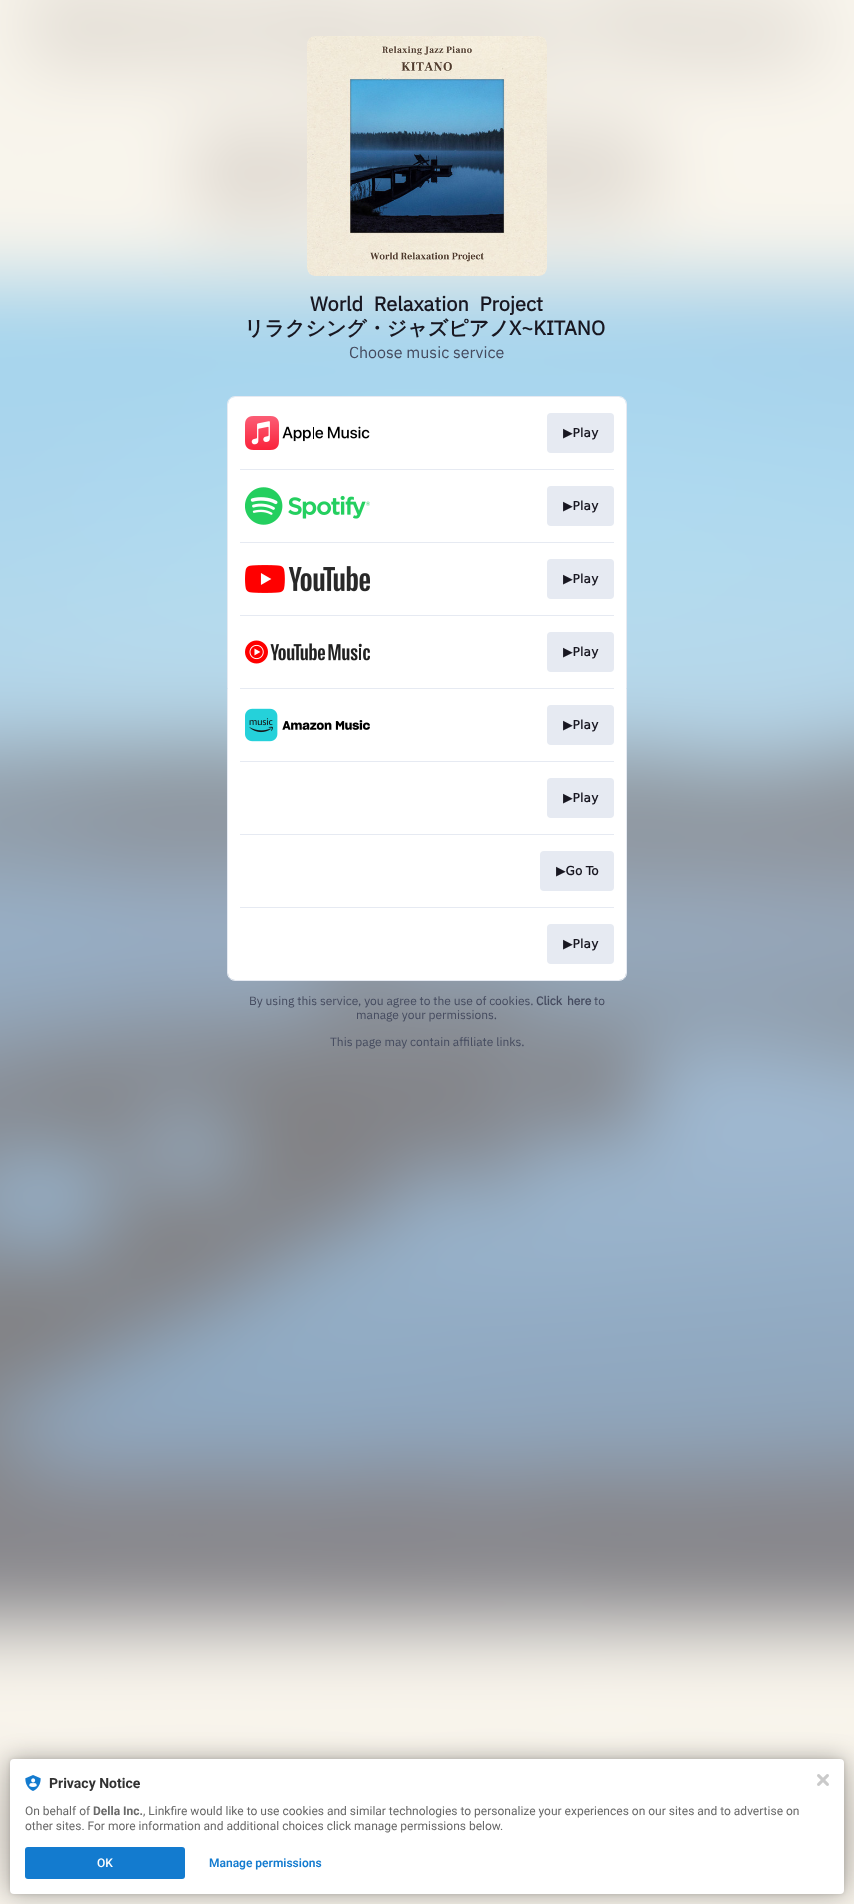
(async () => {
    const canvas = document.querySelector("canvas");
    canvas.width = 854;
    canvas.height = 1904;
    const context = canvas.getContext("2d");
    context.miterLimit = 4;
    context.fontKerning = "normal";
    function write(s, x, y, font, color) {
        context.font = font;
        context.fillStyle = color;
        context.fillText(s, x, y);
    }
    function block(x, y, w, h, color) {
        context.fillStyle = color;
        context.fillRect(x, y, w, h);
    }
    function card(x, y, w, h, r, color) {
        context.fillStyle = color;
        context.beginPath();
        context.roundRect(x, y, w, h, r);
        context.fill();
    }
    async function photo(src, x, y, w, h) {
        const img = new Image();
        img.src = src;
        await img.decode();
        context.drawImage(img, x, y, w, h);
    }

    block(0, 0, 854, 1904, "rgb(255, 255, 255)");
    await photo("media/1.png", 0, 0, 854, 1904);
    await photo("media/2.png", 307, 36, 240, 240);
    write("…", 381, 80, "12px IBM Plex Sans", "rgb(144, 182, 197)");
    context.wordSpacing = "6px";
    write("World Relaxation Project", 310, 311, "bold 20px IBM Plex Sans", "rgb(24, 23, 33)");
    context.wordSpacing = "0px";
    write("リラクシング・ジャズピアノ", 244, 335, "bold 20px WenQuanYi Zen Hei", "rgb(24, 23, 33)");
    write("X~KITANO", 509, 335, "bold 20px IBM Plex Sans", "rgb(24, 23, 33)");
    write("Choose music service", 349, 358, "16px IBM Plex Sans", "rgb(69, 75, 95)");
    context.beginPath();
    context.roundRect(227.5, 396.5, 399, 584, 7.5);
    context.strokeStyle = "rgb(230, 234, 242)";
    context.stroke();
    card(228, 397, 398, 583, 7, "rgb(255, 255, 255)");
    await photo("media/3.png", 245, 416, 125, 34);
    card(547, 413, 67, 40, 4, "rgb(230, 234, 242)");
    context.letterSpacing = "0.25px";
    write("▶Play", 563, 437, "bold 12px DejaVu Sans", "rgb(24, 23, 33)");
    block(240, 469, 374, 1, "rgb(230, 234, 242)");
    await photo("media/4.png", 245, 487, 125, 38);
    card(547, 486, 67, 40, 4, "rgb(230, 234, 242)");
    write("▶Play", 563, 510, "bold 12px DejaVu Sans", "rgb(24, 23, 33)");
    block(240, 542, 374, 1, "rgb(230, 234, 242)");
    await photo("media/5.png", 245, 565, 125, 28);
    card(547, 559, 67, 40, 4, "rgb(230, 234, 242)");
    write("▶Play", 563, 583, "bold 12px DejaVu Sans", "rgb(24, 23, 33)");
    block(240, 615, 374, 1, "rgb(230, 234, 242)");
    await photo("media/6.png", 245, 640, 125, 24);
    card(547, 632, 67, 40, 4, "rgb(230, 234, 242)");
    write("▶Play", 563, 656, "bold 12px DejaVu Sans", "rgb(24, 23, 33)");
    block(240, 688, 374, 1, "rgb(230, 234, 242)");
    await photo("media/7.png", 245, 708, 125, 34);
    card(547, 705, 67, 40, 4, "rgb(230, 234, 242)");
    write("▶Play", 563, 729, "bold 12px DejaVu Sans", "rgb(24, 23, 33)");
    block(240, 761, 374, 1, "rgb(230, 234, 242)");
    card(547, 778, 67, 40, 4, "rgb(230, 234, 242)");
    write("▶Play", 563, 802, "bold 12px DejaVu Sans", "rgb(24, 23, 33)");
    block(240, 834, 374, 1, "rgb(230, 234, 242)");
    card(540, 851, 74, 40, 4, "rgb(230, 234, 242)");
    context.wordSpacing = "-1px";
    write("▶Go To", 556, 875, "bold 12px DejaVu Sans", "rgb(24, 23, 33)");
    block(240, 907, 374, 1, "rgb(230, 234, 242)");
    card(547, 924, 67, 40, 4, "rgb(230, 234, 242)");
    context.wordSpacing = "0px";
    write("▶Play", 563, 948, "bold 12px DejaVu Sans", "rgb(24, 23, 33)");
    context.letterSpacing = "0px";
    write("By using this service, you agree to the use of cookies.", 249, 1005, "12px IBM Plex Sans", "rgb(69, 75, 95)");
    context.wordSpacing = "2px";
    write("Click here", 536, 1005, "bold 12px IBM Plex Sans", "rgb(69, 75, 95)");
    context.wordSpacing = "0px";
    write("to", 594, 1005, "12px IBM Plex Sans", "rgb(69, 75, 95)");
    write("manage your permissions.", 356, 1019, "12px IBM Plex Sans", "rgb(69, 75, 95)");
    write("This page may contain affiliate links.", 330, 1046, "12px IBM Plex Sans", "rgb(69, 75, 95)");
    context.fillStyle = "rgba(0, 0, 0, 0.12)";
    context.filter = "blur(2px)";
    context.beginPath();
    context.roundRect(10, 1759, 834, 135, 4);
    context.fill();
    context.filter = "none";
    context.fillStyle = "rgba(0, 0, 0, 0.3)";
    context.filter = "blur(12px)";
    context.beginPath();
    context.roundRect(10, 1759, 834, 135, 4);
    context.fill();
    context.filter = "none";
    card(10, 1759, 834, 135, 4, "rgb(255, 255, 255)");
    await photo("media/8.png", 25, 1775, 16, 16);
    write("Privacy Notice", 49, 1788, "bold 14px Roboto", "rgb(50, 50, 50)");
    write("On behalf of", 25, 1815, "12px Roboto", "rgb(104, 104, 104)");
    write("Della Inc.", 93, 1815, "bold 12px Roboto", "rgb(104, 104, 104)");
    write(", Linkfire would like to use cookies and similar technologies to personalize your experiences on our sites and to advertise on", 143, 1815, "12px Roboto", "rgb(104, 104, 104)");
    write("other sites. For more information and additional choices click manage permissions below.", 25, 1830, "12px Roboto", "rgb(104, 104, 104)");
    card(25, 1847, 160, 32, 3, "rgb(19, 123, 207)");
    write("OK", 97, 1867, "500 12px Roboto", "rgb(255, 255, 255)");
    write("Manage permissions", 209, 1867, "600 12px Roboto", "rgb(19, 123, 207)");
    await photo("media/9.png", 817, 1774, 12, 12);
})();
